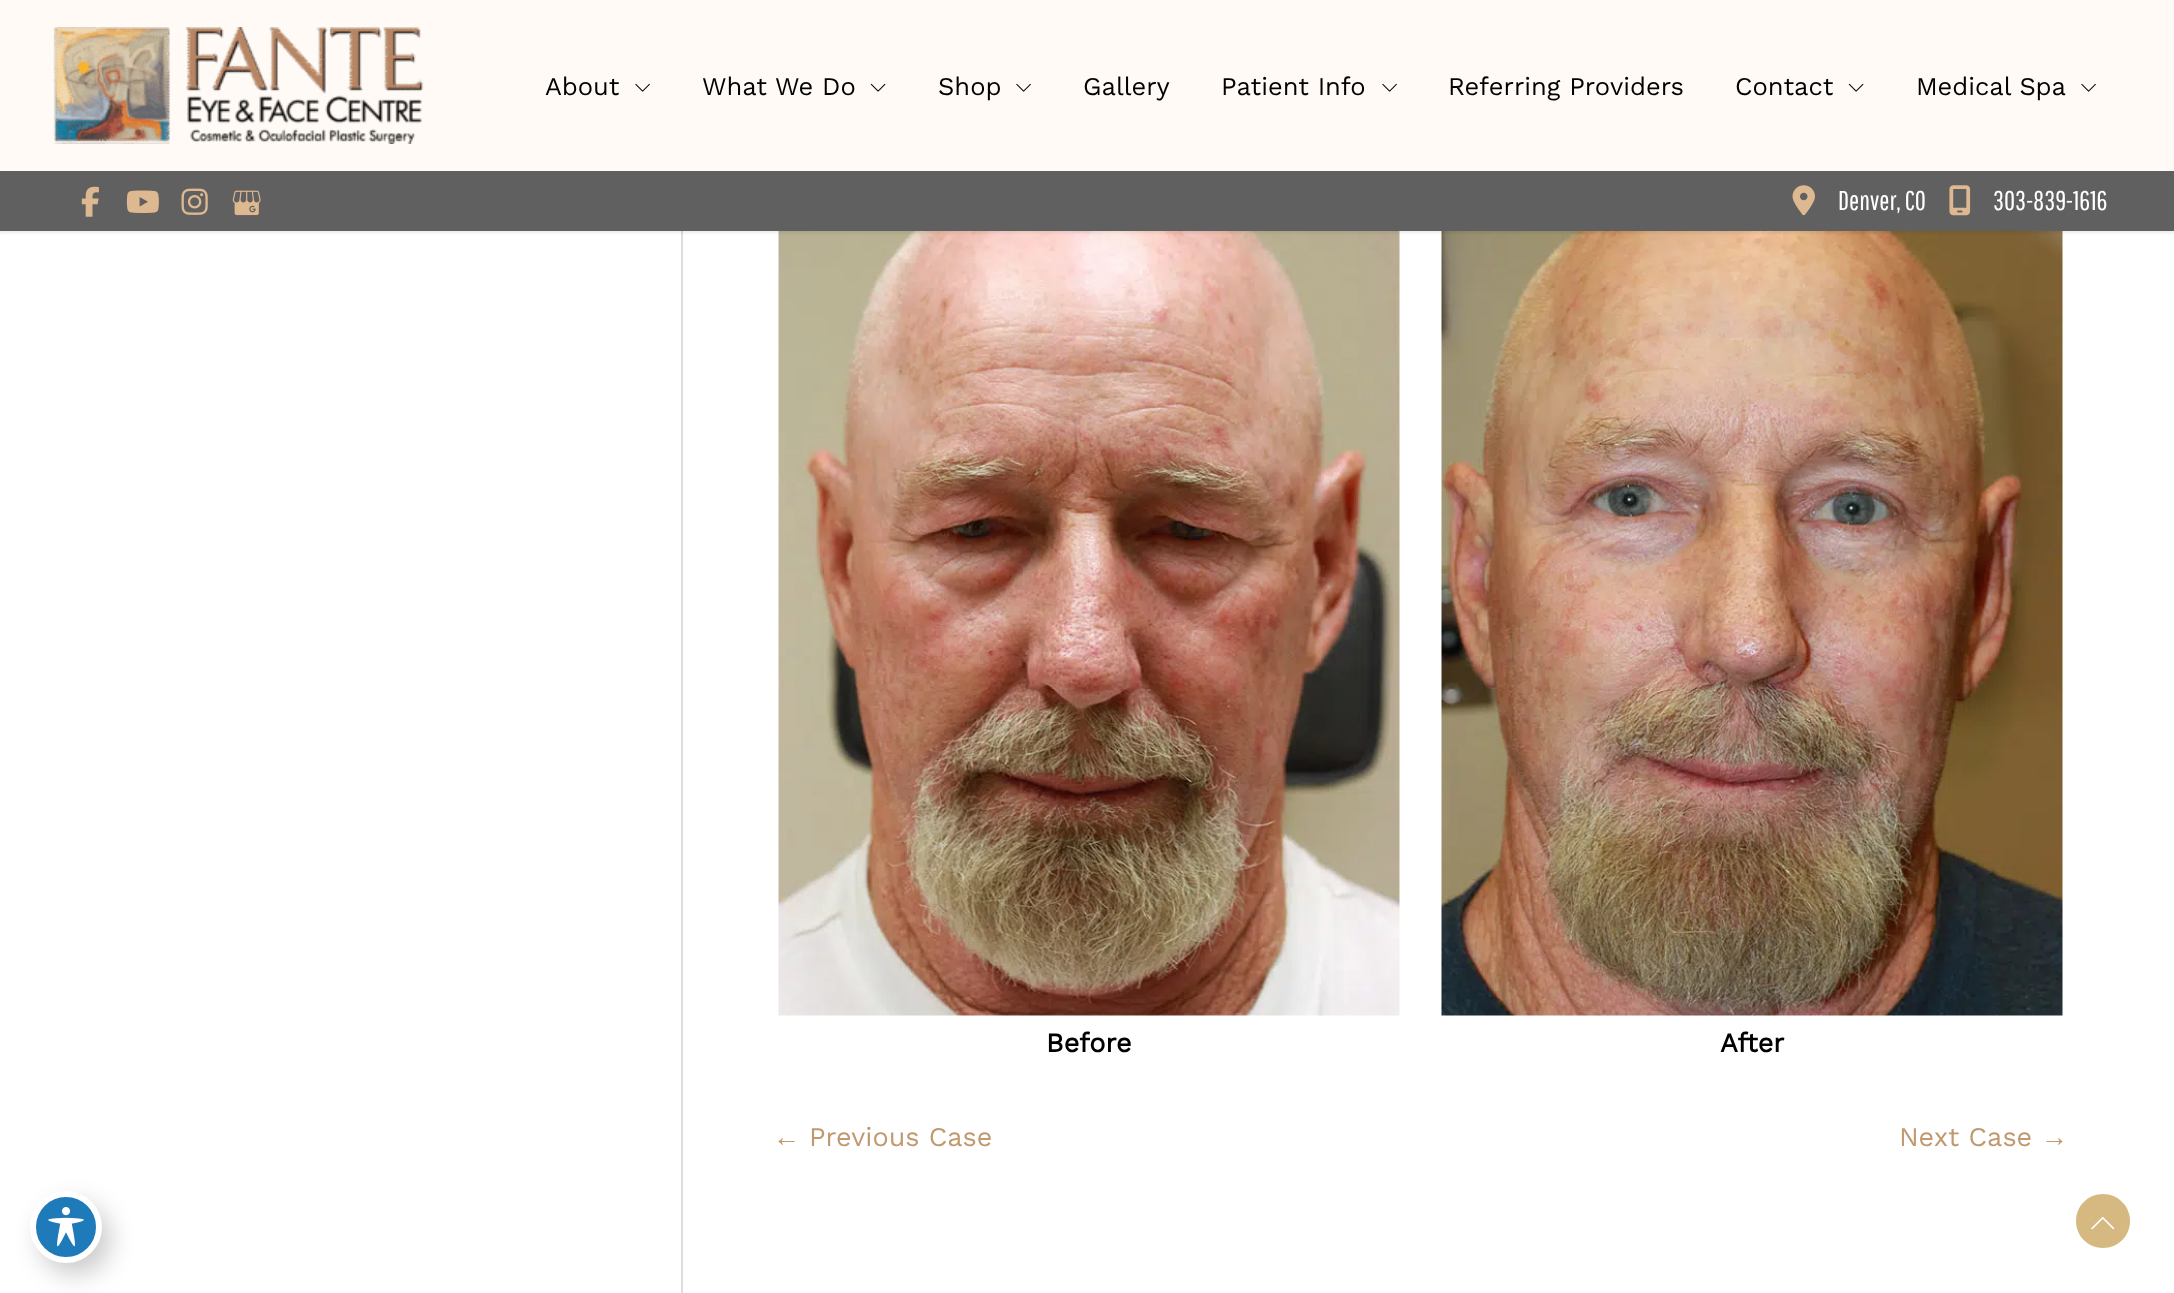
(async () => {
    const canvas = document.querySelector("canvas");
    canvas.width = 2174;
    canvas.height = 1293;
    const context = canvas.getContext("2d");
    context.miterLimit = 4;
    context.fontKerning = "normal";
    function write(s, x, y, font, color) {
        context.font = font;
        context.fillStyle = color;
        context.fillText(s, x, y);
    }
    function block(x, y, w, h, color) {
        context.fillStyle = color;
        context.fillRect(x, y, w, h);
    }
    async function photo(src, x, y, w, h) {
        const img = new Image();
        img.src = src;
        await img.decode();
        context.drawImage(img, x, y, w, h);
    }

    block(0, 0, 2174, 1293, "rgb(255, 255, 255)");
    block(681, 231, 2, 1062, "rgb(221, 221, 221)");
    await photo("media/10.png", 778, 231, 622, 785);
    await photo("media/11.png", 1441, 231, 622, 785);
    context.fillStyle = "rgba(0, 0, 0, 0.08)";
    context.filter = "blur(1.5px)";
    context.beginPath();
    context.rect(0, 2, 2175, 231);
    context.fill();
    context.filter = "none";
    block(0, 0, 2174, 171, "rgb(255, 250, 245)");
    await photo("media/1.png", 53, 27, 371, 117);
    write("About", 545, 95, "25.5px Work Sans", "rgb(0, 0, 0)");
    await photo("media/2.png", 635, 83, 15, 9);
    write("What We Do", 702, 95, "25.5px Work Sans", "rgb(0, 0, 0)");
    await photo("media/3.png", 870, 83, 16, 9);
    write("Shop", 938, 95, "25.5px Work Sans", "rgb(0, 0, 0)");
    await photo("media/2.png", 1016, 83, 15, 9);
    write("Gallery", 1083, 95, "25.5px Work Sans", "rgb(0, 0, 0)");
    write("Patient Info", 1221, 95, "25.5px Work Sans", "rgb(0, 0, 0)");
    await photo("media/2.png", 1382, 83, 15, 9);
    write("Referring Providers", 1448, 95, "25.5px Work Sans", "rgb(0, 0, 0)");
    write("Contact", 1735, 95, "25.5px Work Sans", "rgb(0, 0, 0)");
    await photo("media/3.png", 1848, 83, 16, 9);
    write("Medical Spa", 1916, 95, "25.5px Work Sans", "rgb(0, 0, 0)");
    await photo("media/2.png", 2081, 83, 15, 9);
    block(0, 171, 2174, 60, "rgb(96, 96, 96)");
    await photo("media/4.png", 81, 186, 18, 31);
    await photo("media/5.png", 126, 190, 33, 23);
    await photo("media/6.png", 181, 188, 27, 27);
    await photo("media/7.png", 232, 190, 29, 26);
    await photo("media/8.png", 1792, 185, 23, 31);
    write("Denver, CO", 1838, 210, "27px Pathway Gothic One", "rgb(255, 255, 255)");
    await photo("media/9.png", 1949, 185, 22, 31);
    write("303-839-1616", 1993, 210, "27px Pathway Gothic One", "rgb(255, 255, 255)");
    write("Before", 1046, 1052, "bold 27px Work Sans", "rgb(0, 0, 0)");
    write("After", 1720, 1052, "bold 27px Work Sans", "rgb(0, 0, 0)");
    write("←", 773, 1146, "27px Liberation Sans", "rgb(193, 153, 112)");
    write("Previous Case", 809, 1146, "27px Work Sans", "rgb(193, 153, 112)");
    write("Next Case", 1899, 1146, "27px Work Sans", "rgb(193, 153, 112)");
    write("→", 2041, 1146, "27px Liberation Sans", "rgb(193, 153, 112)");
    context.fillStyle = "rgba(0, 0, 0, 0.2)";
    context.filter = "blur(12px)";
    context.beginPath();
    context.roundRect(39, 1203, 72, 72, 36);
    context.fill();
    context.filter = "none";
    context.fillStyle = "rgb(30, 122, 185)";
    context.beginPath();
    context.arc(66, 1227, 33, 0, Math.PI * 2);
    context.fill();
    context.strokeStyle = "rgb(255, 255, 255)";
    context.lineWidth = 6;
    context.stroke();
    await photo("media/12.png", 48, 1207, 36, 40);
    context.fillStyle = "rgb(214, 185, 129)";
    context.beginPath();
    context.moveTo(2103, 1248);
    context.bezierCurveTo(2088, 1248, 2076, 1236, 2076, 1221);
    context.bezierCurveTo(2076, 1206, 2088, 1194, 2103, 1194);
    context.bezierCurveTo(2118, 1194, 2130, 1206, 2130, 1221);
    context.bezierCurveTo(2130, 1236, 2118, 1248, 2103, 1248);
    context.closePath();
    context.fill();
    await photo("media/13.png", 2091, 1217, 24, 13);
})();
